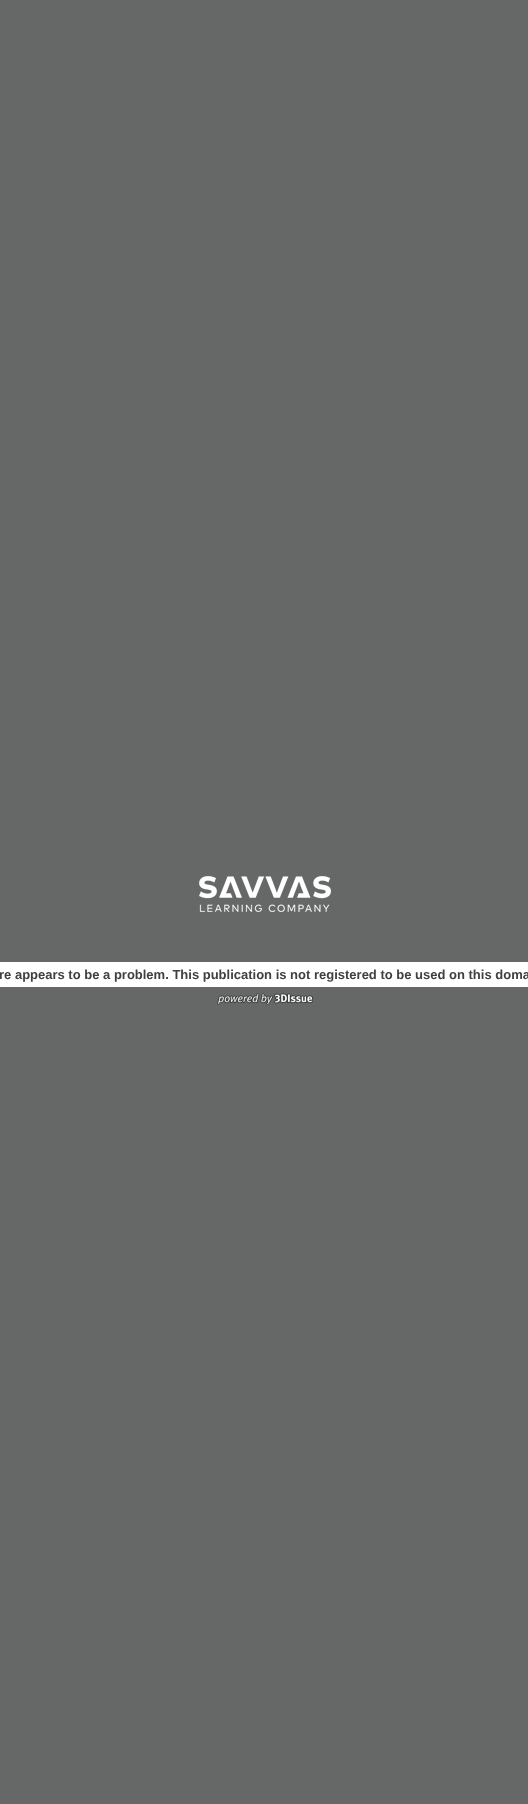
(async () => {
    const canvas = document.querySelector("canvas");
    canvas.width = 528;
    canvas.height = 1804;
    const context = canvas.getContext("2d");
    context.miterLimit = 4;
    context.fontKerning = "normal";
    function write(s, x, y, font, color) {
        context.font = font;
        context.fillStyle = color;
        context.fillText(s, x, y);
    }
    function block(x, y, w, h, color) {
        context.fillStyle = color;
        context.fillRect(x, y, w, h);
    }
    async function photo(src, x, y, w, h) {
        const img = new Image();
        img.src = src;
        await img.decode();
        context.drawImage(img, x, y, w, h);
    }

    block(0, 0, 528, 1804, "rgb(102, 104, 104)");
    await photo("media/1.png", 199, 876, 132, 36);
    block(0, 962, 528, 25, "rgb(255, 255, 255)");
    write("re appears to be a problem. This publication is not registered to be used on this doma", -1, 979, "bold 13px Liberation Sans", "rgb(64, 64, 64)");
    await photo("media/2.png", 217, 993, 96, 12);
})();
